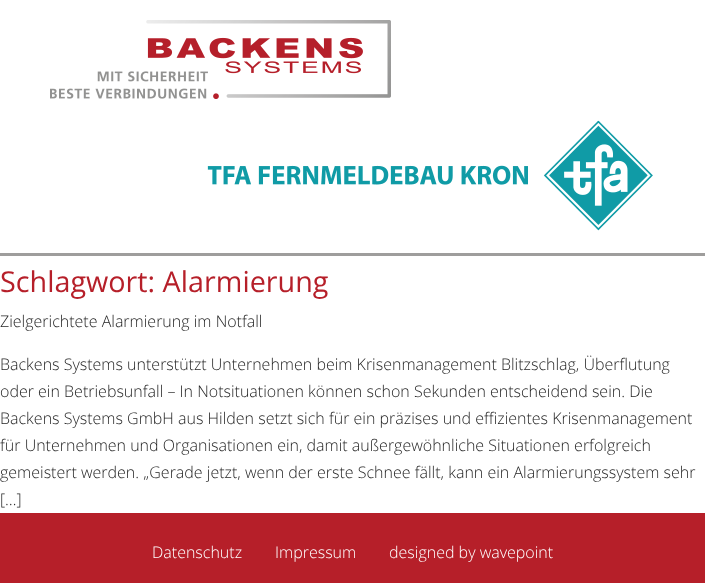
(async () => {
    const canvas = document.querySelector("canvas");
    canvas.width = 705;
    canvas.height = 583;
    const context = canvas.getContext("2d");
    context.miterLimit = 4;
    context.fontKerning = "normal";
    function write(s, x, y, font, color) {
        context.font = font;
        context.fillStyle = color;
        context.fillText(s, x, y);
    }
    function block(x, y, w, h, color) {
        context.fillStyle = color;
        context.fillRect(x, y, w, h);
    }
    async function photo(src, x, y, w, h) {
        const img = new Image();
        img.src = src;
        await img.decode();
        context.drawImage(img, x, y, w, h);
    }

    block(0, 0, 705, 583, "rgb(255, 255, 255)");
    write("Schlagwort: Alarmierung", 0, 292, "28.75px Open Sans", "rgb(182, 31, 41)");
    write("Zielgerichtete Alarmierung im Notfall", 0, 327, "300 16px Open Sans", "rgb(38, 38, 38)");
    write("Backens Systems unterstützt Unternehmen beim Krisenmanagement Blitzschlag, Überflutung", 0, 370, "300 16px Open Sans", "rgb(38, 38, 38)");
    write("oder ein Betriebsunfall – In Notsituationen können schon Sekunden entscheidend sein. Die", 0, 397, "300 16px Open Sans", "rgb(38, 38, 38)");
    write("Backens Systems GmbH aus Hilden setzt sich für ein präzises und effizientes Krisenmanagement", 0, 424, "300 16px Open Sans", "rgb(38, 38, 38)");
    write("für Unternehmen und Organisationen ein, damit außergewöhnliche Situationen erfolgreich", 0, 451, "300 16px Open Sans", "rgb(38, 38, 38)");
    write("gemeistert werden. „Gerade jetzt, wenn der erste Schnee fällt, kann ein Alarmierungssystem sehr", 0, 478, "300 16px Open Sans", "rgb(38, 38, 38)");
    write("[…]", 0, 505, "300 16px Open Sans", "rgb(38, 38, 38)");
    block(0, 253, 705, 3, "rgb(158, 157, 156)");
    await photo("media/1.png", 50, 20, 341, 79);
    await photo("media/2.png", 207, 120, 446, 111);
    block(0, 513, 705, 70, "rgb(182, 31, 41)");
    write("Datenschutz", 152, 558, "300 16px Open Sans", "rgb(255, 255, 255)");
    write("Impressum", 275, 558, "300 16px Open Sans", "rgb(255, 255, 255)");
    write("designed by wavepoint", 389, 558, "300 16px Open Sans", "rgb(255, 255, 255)");
})();
